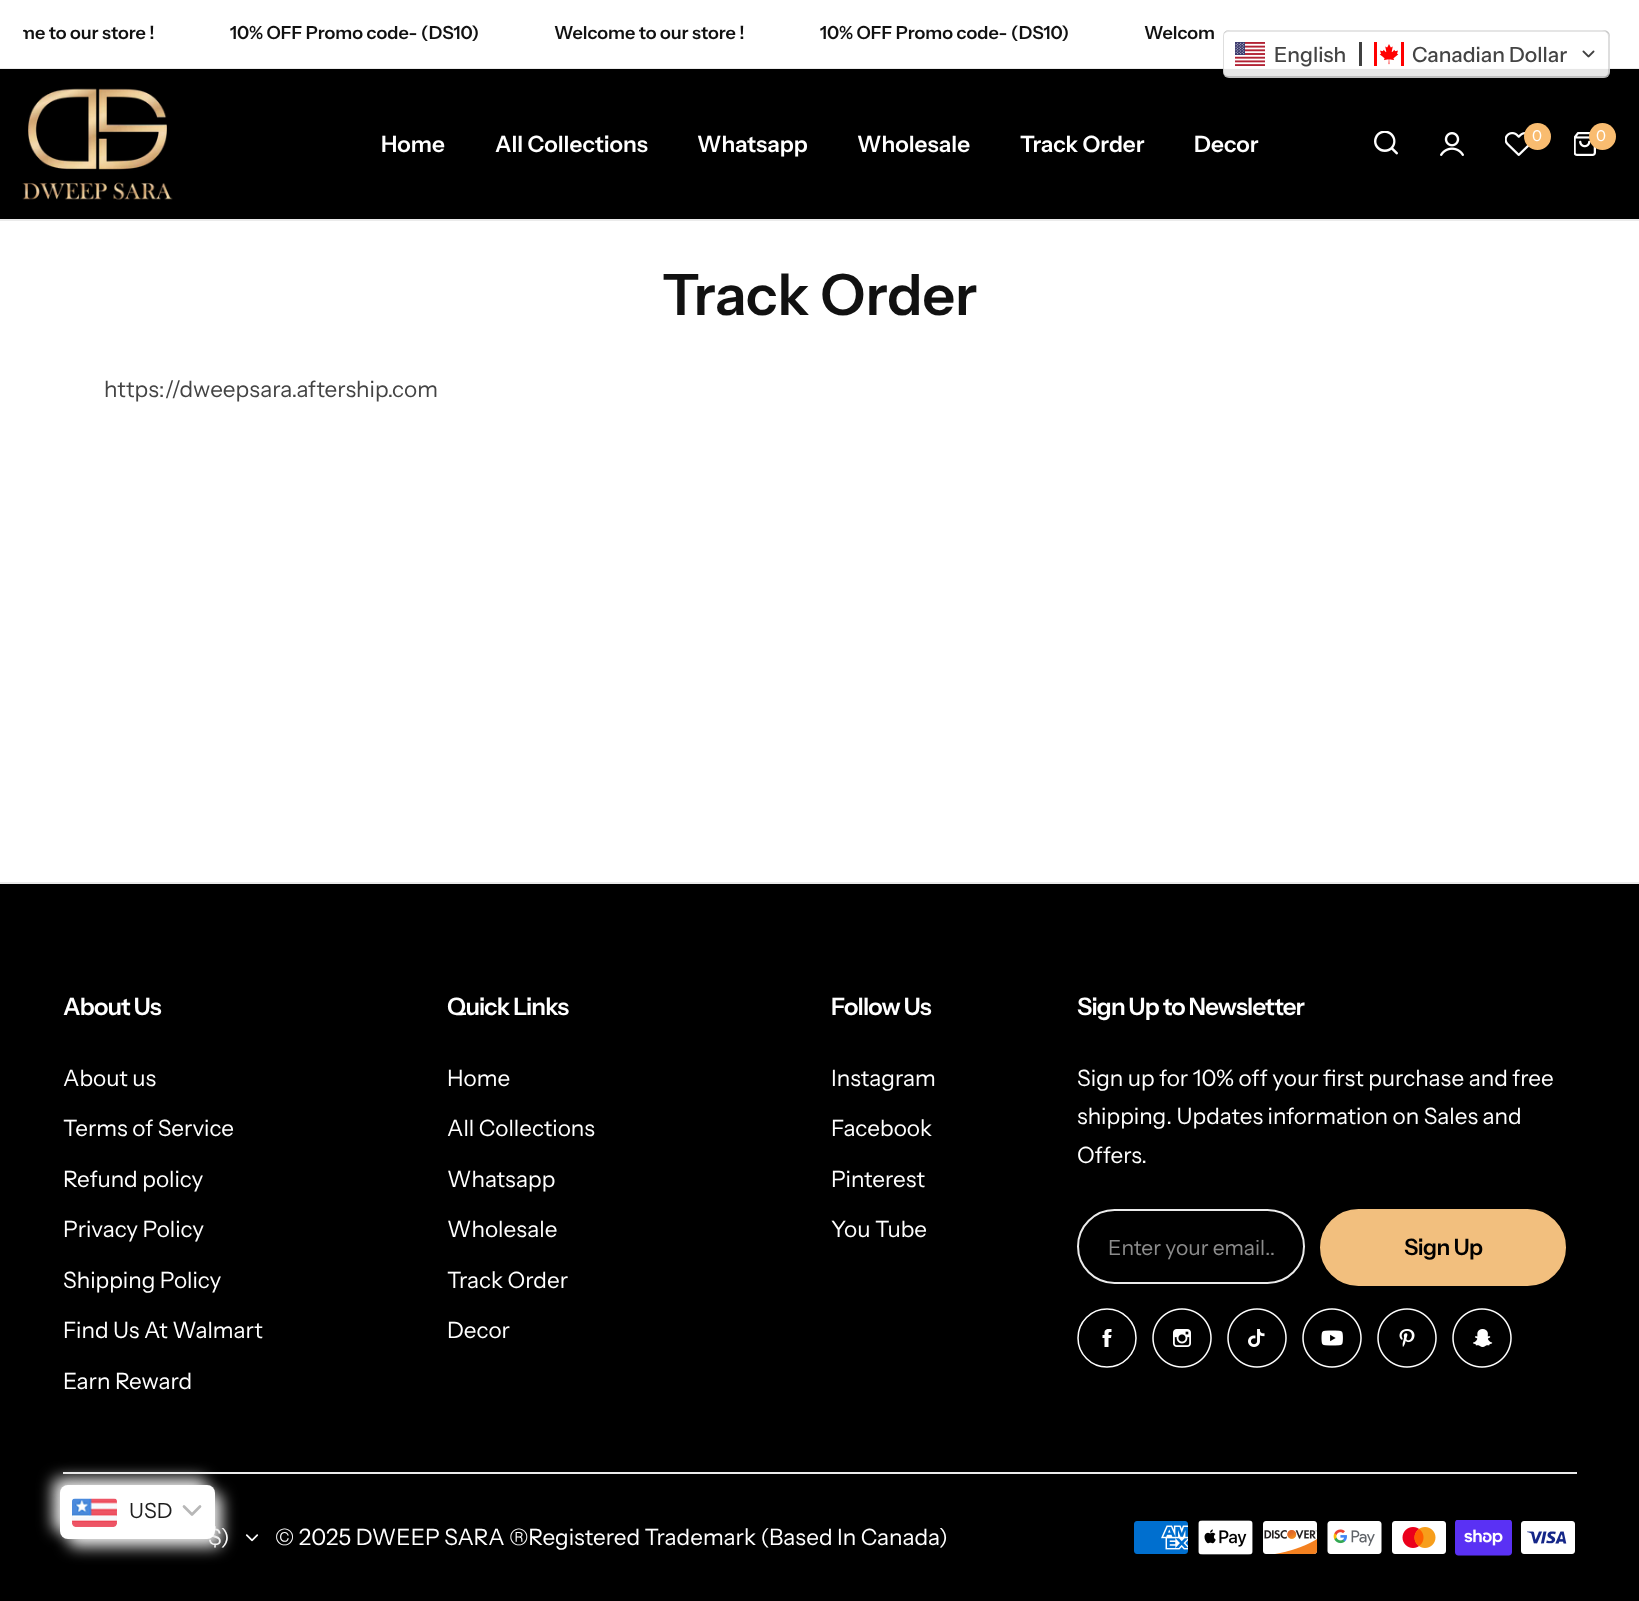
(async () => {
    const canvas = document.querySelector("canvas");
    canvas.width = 1639;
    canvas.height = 1601;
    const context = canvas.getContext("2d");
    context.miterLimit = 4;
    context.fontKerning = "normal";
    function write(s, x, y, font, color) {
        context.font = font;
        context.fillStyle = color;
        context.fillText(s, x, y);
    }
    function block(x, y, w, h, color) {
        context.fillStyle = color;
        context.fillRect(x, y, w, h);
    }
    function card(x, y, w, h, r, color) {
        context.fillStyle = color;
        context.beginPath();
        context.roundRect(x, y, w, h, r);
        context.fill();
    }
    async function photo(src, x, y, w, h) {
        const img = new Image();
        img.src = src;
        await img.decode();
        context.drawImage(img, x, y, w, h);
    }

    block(0, 0, 1639, 1601, "rgb(255, 255, 255)");
    block(0, 68, 1639, 1, "rgb(235, 235, 235)");
    context.save();
    context.beginPath();
    context.rect(23, 18, 1594, 32);
    context.clip();
    write("me to our store !", 18, 39, "600 18px Instrument Sans", "rgb(17, 17, 17)");
    context.restore();
    write("10% OFF Promo code- (DS10)", 230, 39, "600 18px Instrument Sans", "rgb(17, 17, 17)");
    write("Welcome to our store !", 554, 39, "600 18px Instrument Sans", "rgb(17, 17, 17)");
    write("10% OFF Promo code- (DS10)", 820, 39, "600 18px Instrument Sans", "rgb(17, 17, 17)");
    write("Welcom", 1144, 39, "600 18px Instrument Sans", "rgb(17, 17, 17)");
    block(0, 69, 1639, 150, "rgb(0, 0, 0)");
    card(1223, 30, 387, 48, 6, "rgba(255, 255, 255, 0.9)");
    context.fillStyle = "rgba(204, 204, 204, 0.5)";
    context.beginPath();
    context.moveTo(1228, 32);
    context.lineTo(1604, 32);
    context.bezierCurveTo(1607, 32, 1610, 34, 1610, 38);
    context.lineTo(1610, 36);
    context.bezierCurveTo(1610, 33, 1607, 30, 1604, 30);
    context.lineTo(1229, 30);
    context.bezierCurveTo(1226, 30, 1224, 32, 1223, 34);
    context.bezierCurveTo(1224, 33, 1226, 32, 1228, 32);
    context.closePath();
    context.fill();
    context.fillStyle = "rgba(0, 0, 0, 0.17)";
    context.beginPath();
    context.moveTo(1223, 74);
    context.bezierCurveTo(1224, 76, 1226, 78, 1229, 78);
    context.lineTo(1604, 78);
    context.bezierCurveTo(1607, 78, 1610, 75, 1610, 72);
    context.lineTo(1610, 70);
    context.bezierCurveTo(1610, 74, 1607, 76, 1604, 76);
    context.lineTo(1228, 76);
    context.bezierCurveTo(1226, 76, 1224, 75, 1223, 74);
    context.closePath();
    context.fill();
    context.fillStyle = "rgba(0, 0, 0, 0.13)";
    context.beginPath();
    context.moveTo(1602, 78);
    context.bezierCurveTo(1611, 78, 1610, 73, 1610, 66);
    context.lineTo(1610, 42);
    context.bezierCurveTo(1610, 35, 1611, 30, 1602, 30);
    context.bezierCurveTo(1605, 30, 1608, 33, 1608, 36);
    context.lineTo(1608, 72);
    context.bezierCurveTo(1608, 75, 1605, 78, 1602, 78);
    context.closePath();
    context.fill();
    context.beginPath();
    context.moveTo(1229, 30);
    context.bezierCurveTo(1226, 30, 1223, 33, 1223, 36);
    context.lineTo(1223, 72);
    context.bezierCurveTo(1223, 75, 1226, 78, 1229, 78);
    context.lineTo(1230, 78);
    context.bezierCurveTo(1227, 78, 1224, 75, 1224, 72);
    context.lineTo(1224, 36);
    context.bezierCurveTo(1224, 33, 1227, 30, 1230, 30);
    context.closePath();
    context.fill();
    await photo("media/1.png", 1235, 42, 30, 24);
    write("English", 1274, 62, "500 21px Instrument Sans", "rgb(68, 68, 68)");
    block(1359, 42, 3, 24, "rgb(64, 64, 64)");
    await photo("media/2.png", 1374, 42, 30, 24);
    write("Canadian Dollar", 1412, 62, "500 21px Instrument Sans", "rgb(68, 68, 68)");
    await photo("media/3.png", 1582, 50, 13, 8);
    block(0, 219, 1639, 2, "rgb(235, 235, 235)");
    await photo("media/4.png", 22, 88, 151, 112);
    write("Home", 381, 152, "600 22.5px Instrument Sans", "rgb(255, 255, 255)");
    write("All Collections", 495, 152, "600 22.5px Instrument Sans", "rgb(255, 255, 255)");
    write("Whatsapp", 697, 152, "600 22.5px Instrument Sans", "rgb(255, 255, 255)");
    write("Wholesale", 857, 152, "600 22.5px Instrument Sans", "rgb(255, 255, 255)");
    write("Track Order", 1020, 152, "600 22.5px Instrument Sans", "rgb(255, 255, 255)");
    write("Decor", 1194, 152, "600 22.5px Instrument Sans", "rgb(255, 255, 255)");
    await photo("media/5.png", 1374, 131, 24, 24);
    await photo("media/6.png", 1440, 132, 24, 24);
    await photo("media/7.png", 1505, 132, 24, 24);
    context.fillStyle = "rgb(249, 188, 112)";
    context.beginPath();
    context.arc(1537.5, 136.5, 13.5, 0, Math.PI * 2);
    context.fill();
    write("0", 1532, 141, "15px Instrument Sans", "rgb(255, 255, 255)");
    await photo("media/8.png", 1574, 132, 22, 24);
    context.fillStyle = "rgb(249, 188, 112)";
    context.beginPath();
    context.arc(1602.5, 136.5, 13.5, 0, Math.PI * 2);
    context.fill();
    write("0", 1596, 141, "15px Instrument Sans", "rgb(255, 255, 255)");
    write("Track Order", 662, 315, "600 57px Instrument Sans", "rgb(17, 17, 17)");
    write("https://dweepsara.aftership.com", 104, 397, "22.5px Instrument Sans", "rgb(68, 68, 68)");
    block(0, 884, 1639, 717, "rgb(0, 0, 0)");
    block(0, 882, 1639, 2, "rgb(235, 235, 235)");
    context.letterSpacing = "-0.8px";
    write("About Us", 63, 1015, "600 24px Instrument Sans", "rgb(255, 255, 255)");
    context.letterSpacing = "0px";
    write("About us", 63, 1086, "22.5px Instrument Sans", "rgb(255, 255, 255)");
    write("Terms of Service", 63, 1136, "22.5px Instrument Sans", "rgb(255, 255, 255)");
    write("Refund policy", 63, 1187, "22.5px Instrument Sans", "rgb(255, 255, 255)");
    write("Privacy Policy", 63, 1237, "22.5px Instrument Sans", "rgb(255, 255, 255)");
    write("Shipping Policy", 63, 1288, "22.5px Instrument Sans", "rgb(255, 255, 255)");
    write("Find Us At Walmart", 63, 1338, "22.5px Instrument Sans", "rgb(255, 255, 255)");
    write("Earn Reward", 63, 1389, "22.5px Instrument Sans", "rgb(255, 255, 255)");
    context.letterSpacing = "-0.8px";
    write("Quick Links", 447, 1015, "600 24px Instrument Sans", "rgb(255, 255, 255)");
    context.letterSpacing = "0px";
    write("Home", 447, 1086, "22.5px Instrument Sans", "rgb(255, 255, 255)");
    write("All Collections", 447, 1136, "22.5px Instrument Sans", "rgb(255, 255, 255)");
    write("Whatsapp", 447, 1187, "22.5px Instrument Sans", "rgb(255, 255, 255)");
    write("Wholesale", 447, 1237, "22.5px Instrument Sans", "rgb(255, 255, 255)");
    write("Track Order", 447, 1288, "22.5px Instrument Sans", "rgb(255, 255, 255)");
    write("Decor", 447, 1338, "22.5px Instrument Sans", "rgb(255, 255, 255)");
    context.letterSpacing = "-0.8px";
    write("Follow Us", 831, 1015, "600 24px Instrument Sans", "rgb(255, 255, 255)");
    context.letterSpacing = "0px";
    write("Instagram", 831, 1086, "22.5px Instrument Sans", "rgb(255, 255, 255)");
    write("Facebook", 831, 1136, "22.5px Instrument Sans", "rgb(255, 255, 255)");
    write("Pinterest", 831, 1187, "22.5px Instrument Sans", "rgb(255, 255, 255)");
    write("You Tube", 831, 1237, "22.5px Instrument Sans", "rgb(255, 255, 255)");
    context.letterSpacing = "-0.8px";
    write("Sign Up to Newsletter", 1077, 1015, "600 24px Instrument Sans", "rgb(255, 255, 255)");
    context.letterSpacing = "0px";
    write("Sign up for 10% off your first purchase and free", 1077, 1086, "22.5px Instrument Sans", "rgb(255, 255, 255)");
    write("shipping. Updates information on Sales and", 1077, 1124, "22.5px Instrument Sans", "rgb(255, 255, 255)");
    write("Offers.", 1077, 1163, "22.5px Instrument Sans", "rgb(255, 255, 255)");
    context.beginPath();
    context.roundRect(1078, 1210, 226, 73, 36.5);
    context.strokeStyle = "rgb(235, 235, 235)";
    context.lineWidth = 2;
    context.stroke();
    write("Enter your email..", 1108, 1255, "21px Instrument Sans", "rgb(140, 140, 140)");
    context.fillStyle = "rgb(242, 191, 126)";
    context.beginPath();
    context.roundRect(1321, 1210, 244, 75, 37.5);
    context.fill();
    context.strokeStyle = "rgb(242, 191, 126)";
    context.stroke();
    context.letterSpacing = "-0.5px";
    write("Sign Up", 1404, 1255, "600 22.5px Instrument Sans", "rgb(0, 0, 0)");
    context.beginPath();
    context.arc(1107, 1338, 29, 0, Math.PI * 2);
    context.strokeStyle = "rgb(255, 255, 255)";
    context.lineWidth = 1.5;
    context.stroke();
    context.fillStyle = "rgb(255, 255, 255)";
    context.beginPath();
    context.moveTo(1104.5, 1333);
    context.lineTo(1104.5, 1335);
    context.lineTo(1102.5, 1335);
    context.lineTo(1102.5, 1338);
    context.lineTo(1104.5, 1338);
    context.lineTo(1104.5, 1347);
    context.lineTo(1108.5, 1347);
    context.lineTo(1108.5, 1338);
    context.lineTo(1111, 1338);
    context.lineTo(1111.5, 1335);
    context.lineTo(1108.5, 1335);
    context.bezierCurveTo(1108.5, 1332, 1108.5, 1332, 1111.5, 1332);
    context.lineTo(1111.5, 1329);
    context.bezierCurveTo(1108, 1329, 1104.5, 1328.5, 1104.5, 1333);
    context.closePath();
    context.fill();
    await photo("media/9.png", 1152, 1308, 60, 60);
    await photo("media/10.png", 1227, 1308, 60, 60);
    await photo("media/11.png", 1302, 1308, 60, 60);
    await photo("media/12.png", 1377, 1308, 60, 60);
    await photo("media/13.png", 1452, 1308, 60, 60);
    block(63, 1472, 1514, 2, "rgb(235, 235, 235)");
    context.letterSpacing = "0px";
    write("$)", 208, 1545, "22.5px Instrument Sans", "rgb(255, 255, 255)");
    await photo("media/14.png", 245, 1534, 14, 8);
    write("© 2025 DWEEP SARA ®Registered Trademark (Based In Canada)", 275, 1545, "22.5px Instrument Sans", "rgb(255, 255, 255)");
    await photo("media/15.png", 1134, 1521, 54, 33);
    await photo("media/16.png", 1198, 1520, 55, 35);
    await photo("media/17.png", 1263, 1521, 55, 33);
    await photo("media/18.png", 1327, 1521, 55, 33);
    await photo("media/19.png", 1392, 1521, 54, 33);
    await photo("media/20.png", 1455, 1520, 57, 36);
    await photo("media/21.png", 1521, 1521, 54, 33);
    context.fillStyle = "rgb(232, 232, 232)";
    context.filter = "blur(7.5px)";
    context.beginPath();
    context.roundRect(53, 1478, 154, 54, 8);
    context.fill();
    context.filter = "none";
    context.filter = "blur(7.5px)";
    context.beginPath();
    context.roundRect(68, 1493, 154, 54, 8);
    context.fill();
    context.filter = "none";
    card(60, 1485, 155, 54, 8, "rgb(255, 255, 255)");
    await photo("media/22.png", 72, 1498, 45, 29);
    write("USD", 129, 1518, "21px Instrument Sans", "rgb(30, 30, 30)");
    context.beginPath();
    context.moveTo(184, 1506.5);
    context.lineTo(192, 1514.5);
    context.lineTo(200, 1506.5);
    context.strokeStyle = "rgb(183, 183, 183)";
    context.lineWidth = 2.7;
    context.lineCap = "round";
    context.lineJoin = "round";
    context.stroke();
})();
